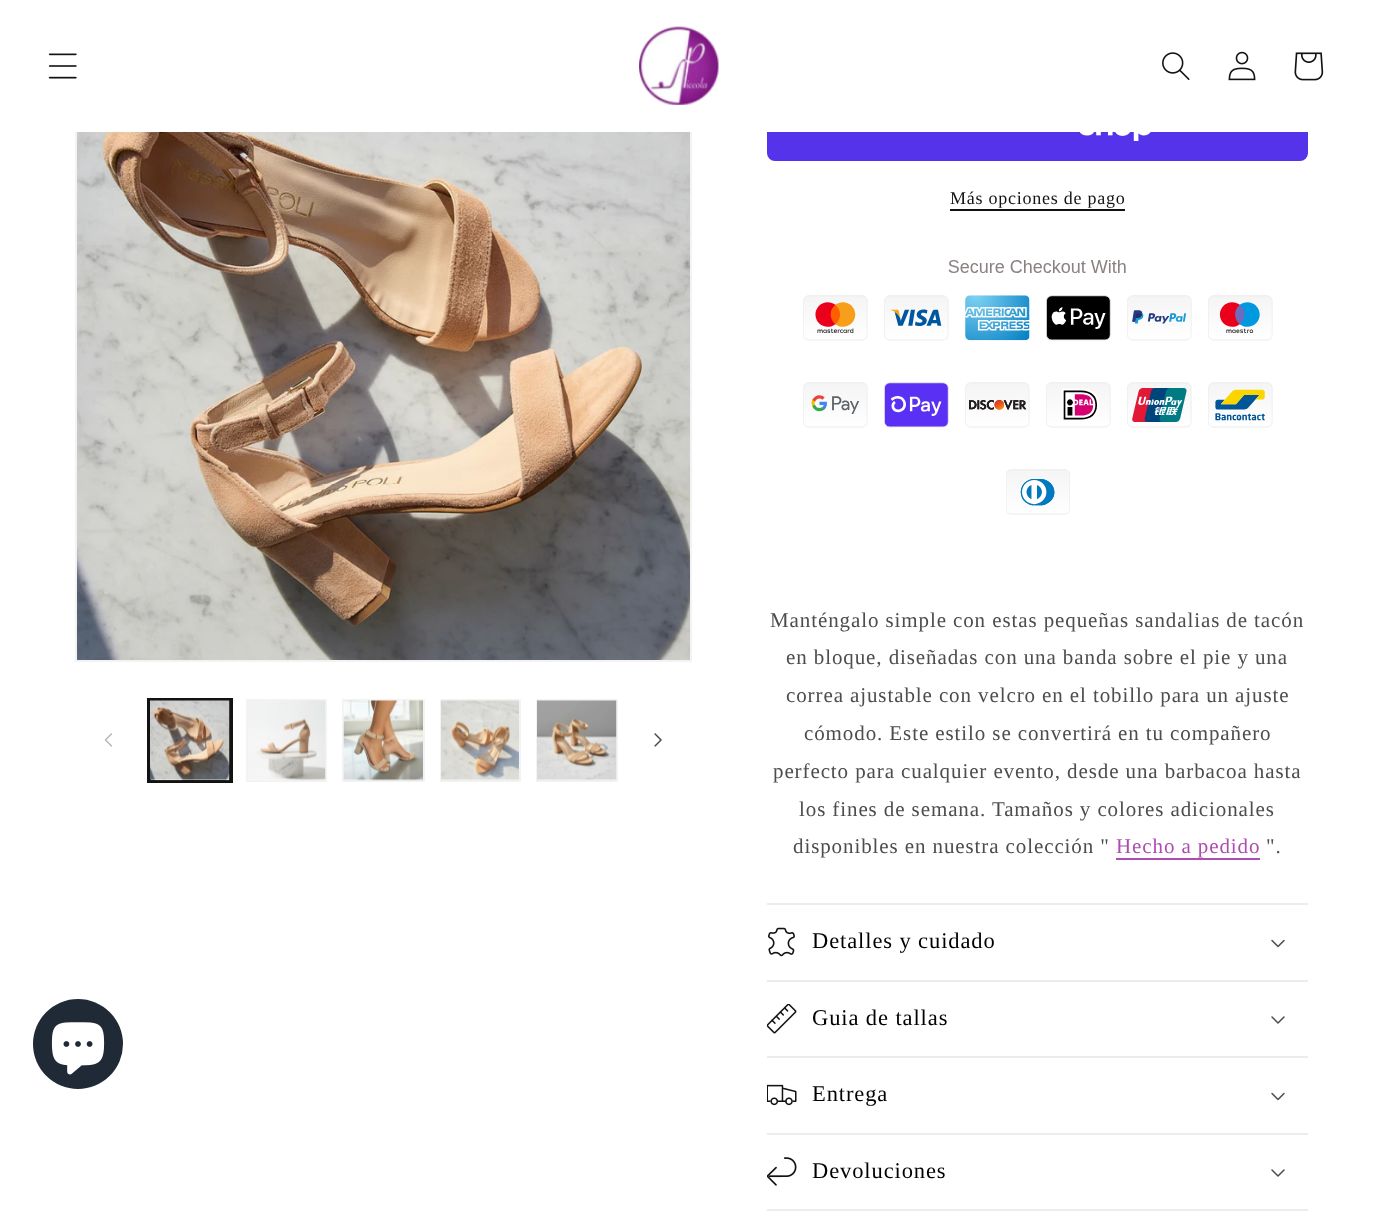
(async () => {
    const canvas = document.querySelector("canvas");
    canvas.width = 1382;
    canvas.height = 1216;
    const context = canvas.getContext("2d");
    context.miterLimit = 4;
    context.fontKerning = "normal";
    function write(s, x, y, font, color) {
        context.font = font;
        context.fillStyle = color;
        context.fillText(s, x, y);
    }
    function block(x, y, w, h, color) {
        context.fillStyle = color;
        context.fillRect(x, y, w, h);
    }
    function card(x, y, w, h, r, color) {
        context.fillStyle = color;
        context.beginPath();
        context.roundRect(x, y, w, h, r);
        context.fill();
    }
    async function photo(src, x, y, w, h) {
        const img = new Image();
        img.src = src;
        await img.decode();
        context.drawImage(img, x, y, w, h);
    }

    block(0, 0, 1382, 1216, "rgb(255, 255, 255)");
    context.strokeStyle = "rgb(243, 243, 243)";
    context.lineWidth = 2;
    context.strokeRect(76, 46, 615, 615);
    card(767, 92, 541, 69, 8, "rgb(84, 51, 235)");
    block(75, 45, 1233, 87, "rgb(255, 255, 255)");
    await photo("media/1.png", 48, 53, 29, 26);
    await photo("media/2.png", 639, 26, 80, 79);
    await photo("media/3.png", 1162, 52, 28, 28);
    await photo("media/4.png", 1228, 51, 28, 30);
    await photo("media/5.png", 1294, 52, 30, 29);
    context.fillStyle = "rgb(32, 42, 54)";
    context.beginPath();
    context.arc(78, 1044, 45, 0, Math.PI * 2);
    context.fill();
    await photo("media/6.png", 51, 1022, 54, 53);
    await photo("media/7.png", 77, 132, 613, 528);
    await photo("media/8.png", 104, 733, 8, 14);
    context.strokeStyle = "rgb(18, 18, 18)";
    context.strokeRect(148, 699, 84, 83);
    context.strokeRect(150, 700, 80, 81);
    await photo("media/9.png", 150, 700, 80, 81);
    context.strokeStyle = "rgb(243, 243, 243)";
    context.strokeRect(247, 700, 79, 81);
    await photo("media/10.png", 248, 700, 78, 81);
    context.strokeRect(343, 700, 81, 81);
    await photo("media/11.png", 343, 700, 80, 81);
    context.strokeRect(441, 700, 79, 81);
    await photo("media/12.png", 441, 700, 78, 81);
    context.strokeRect(537, 700, 80, 81);
    await photo("media/13.png", 537, 700, 80, 81);
    await photo("media/14.png", 654, 733, 8, 14);
    await photo("media/15.png", 1079, 132, 72, 9);
    context.letterSpacing = "0.75px";
    write("Más opciones de pago", 950, 204, "18px Liberation Serif", "rgb(18, 18, 18)");
    block(950, 209, 175, 2, "rgb(18, 18, 18)");
    await photo("media/16.png", 803, 260, 470, 255);
    context.letterSpacing = "0.9px";
    write("Manténgalo simple con estas pequeñas sandalias de tacón", 770, 627, "21px Liberation Serif", "rgb(77, 77, 77)");
    write("en bloque, diseñadas con una banda sobre el pie y una", 786, 664, "21px Liberation Serif", "rgb(77, 77, 77)");
    write("correa ajustable con velcro en el tobillo para un ajuste", 786, 702, "21px Liberation Serif", "rgb(77, 77, 77)");
    write("cómodo. Este estilo se convertirá en tu compañero", 804, 740, "21px Liberation Serif", "rgb(77, 77, 77)");
    write("perfecto para cualquier evento, desde una barbacoa hasta", 773, 778, "21px Liberation Serif", "rgb(77, 77, 77)");
    write("los fines de semana. Tamaños y colores adicionales", 799, 816, "21px Liberation Serif", "rgb(77, 77, 77)");
    write("disponibles en nuestra colección \"", 793, 853, "21px Liberation Serif", "rgb(77, 77, 77)");
    write("Hecho a pedido", 1116, 853, "21px Liberation Serif", "rgb(173, 77, 177)");
    block(1116, 858, 144, 2, "rgb(173, 77, 177)");
    write("\".", 1266, 853, "21px Liberation Serif", "rgb(77, 77, 77)");
    block(767, 903, 541, 2, "rgb(236, 236, 236)");
    block(767, 980, 541, 2, "rgb(236, 236, 236)");
    await photo("media/17.png", 768, 927, 27, 30);
    write("Detalles y cuidado", 812, 948, "22.5px Liberation Serif", "rgb(0, 0, 0)");
    await photo("media/18.png", 1271, 939, 14, 9);
    block(767, 1056, 541, 2, "rgb(236, 236, 236)");
    await photo("media/19.png", 767, 1004, 30, 30);
    write("Guia de tallas", 812, 1025, "22.5px Liberation Serif", "rgb(0, 0, 0)");
    await photo("media/20.png", 1271, 1016, 14, 8);
    block(767, 1133, 541, 2, "rgb(236, 236, 236)");
    await photo("media/21.png", 767, 1084, 30, 22);
    write("Entrega", 812, 1101, "22.5px Liberation Serif", "rgb(0, 0, 0)");
    await photo("media/18.png", 1271, 1092, 14, 9);
    block(767, 1209, 541, 2, "rgb(236, 236, 236)");
    await photo("media/22.png", 767, 1157, 30, 29);
    write("Devoluciones", 812, 1178, "22.5px Liberation Serif", "rgb(0, 0, 0)");
    await photo("media/20.png", 1271, 1169, 14, 8);
})();
